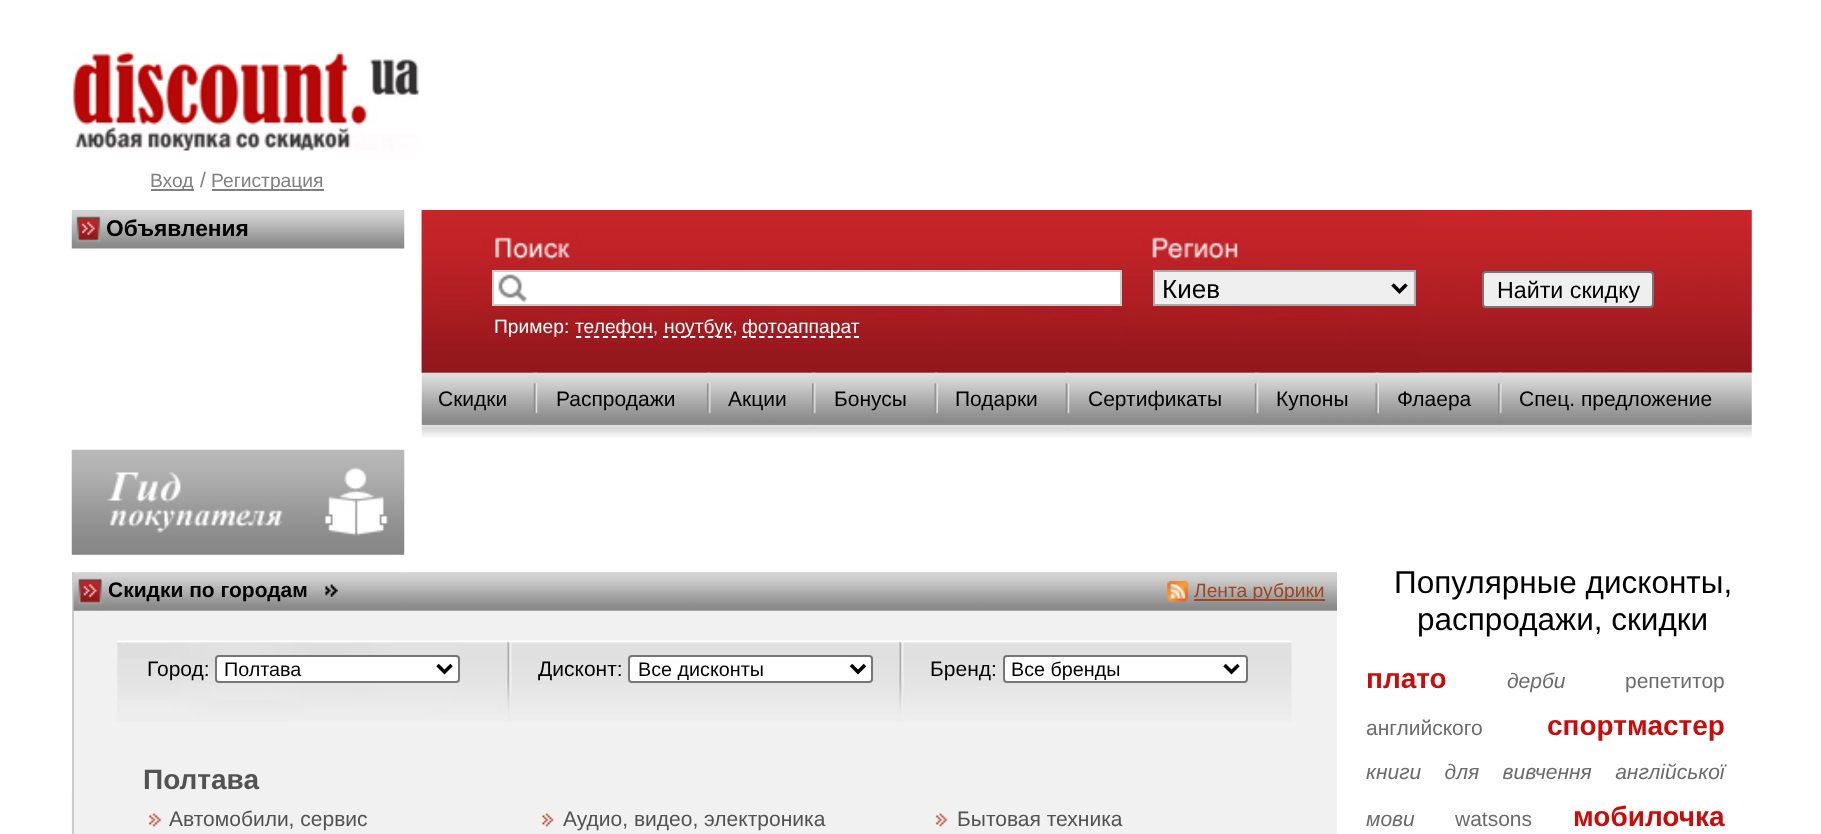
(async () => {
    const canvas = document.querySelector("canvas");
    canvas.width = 1821;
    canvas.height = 834;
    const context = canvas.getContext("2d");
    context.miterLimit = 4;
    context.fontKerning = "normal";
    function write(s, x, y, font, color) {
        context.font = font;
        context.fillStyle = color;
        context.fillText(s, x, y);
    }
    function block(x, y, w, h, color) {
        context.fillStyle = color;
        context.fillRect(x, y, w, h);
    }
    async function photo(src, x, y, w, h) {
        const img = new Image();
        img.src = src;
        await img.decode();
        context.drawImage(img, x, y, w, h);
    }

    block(0, 0, 1821, 834, "rgb(255, 255, 255)");
    await photo("media/1.png", 73, 52, 347, 99);
    block(151, 189, 43, 2, "rgb(128, 128, 128)");
    write("Вход", 150, 187, "19.25px Liberation Sans", "rgb(128, 128, 128)");
    write("/", 200, 187, "21px Liberation Sans", "rgb(128, 128, 128)");
    block(212, 189, 112, 2, "rgb(128, 128, 128)");
    write("Регистрация", 211, 187, "19.25px Liberation Sans", "rgb(128, 128, 128)");
    await photo("media/2.png", 71, 210, 334, 39);
    write("Объявления", 106, 236, "bold 22.75px Liberation Sans", "rgb(0, 0, 0)");
    await photo("media/3.png", 421, 210, 1331, 163);
    await photo("media/4.png", 421, 210, 999, 163);
    block(494, 272, 626, 32, "rgb(255, 255, 255)");
    await photo("media/5.png", 498, 274, 30, 29);
    context.strokeStyle = "rgb(204, 204, 204)";
    context.lineWidth = 2;
    context.strokeRect(493, 271, 628, 34);
    context.fillStyle = "rgb(239, 239, 239)";
    context.beginPath();
    context.rect(1154, 271, 261, 34);
    context.fill();
    context.strokeStyle = "rgb(167, 172, 178)";
    context.stroke();
    context.beginPath();
    context.moveTo(1392.5, 284.5);
    context.lineTo(1399.5, 291.5);
    context.lineTo(1406.5, 284.5);
    context.strokeStyle = "rgb(0, 0, 0)";
    context.lineWidth = 3.5;
    context.stroke();
    write("Киев", 1162, 298, "26px Liberation Sans", "rgb(0, 0, 0)");
    context.fillStyle = "rgb(239, 239, 239)";
    context.beginPath();
    context.roundRect(1483, 272, 170, 35, 3);
    context.fill();
    context.strokeStyle = "rgb(118, 118, 118)";
    context.lineWidth = 2;
    context.stroke();
    write("Найти скидку", 1497, 298, "23.25px Liberation Sans", "rgb(0, 0, 0)");
    write("Пример:", 494, 333, "19.25px Liberation Sans", "rgb(255, 255, 255)");
    context.beginPath();
    context.moveTo(576, 337);
    context.lineTo(653, 337);
    context.strokeStyle = "rgb(255, 255, 255)";
    context.lineWidth = 1.8;
    context.setLineDash([5.25, 3.71]);
    context.stroke();
    write("телефон,", 575, 333, "19.25px Liberation Sans", "rgb(255, 255, 255)");
    context.beginPath();
    context.moveTo(663, 337);
    context.lineTo(731.5, 337);
    context.setLineDash([5.25, 3.75]);
    context.stroke();
    write("ноутбук,", 664, 333, "19.25px Liberation Sans", "rgb(255, 255, 255)");
    context.beginPath();
    context.moveTo(742, 337);
    context.lineTo(859, 337);
    context.setLineDash([5.25, 3.36]);
    context.stroke();
    write("фотоаппарат", 742, 333, "19.25px Liberation Sans", "rgb(255, 255, 255)");
    await photo("media/6.png", 421, 372, 1331, 54);
    write("Скидки", 438, 406, "21px Liberation Sans", "rgb(0, 0, 0)");
    await photo("media/7.png", 533, 372, 5, 54);
    write("Распродажи", 556, 406, "21px Liberation Sans", "rgb(0, 0, 0)");
    await photo("media/8.png", 707, 372, 4, 54);
    write("Акции", 728, 406, "21px Liberation Sans", "rgb(0, 0, 0)");
    await photo("media/9.png", 812, 372, 4, 54);
    write("Бонусы", 834, 406, "21px Liberation Sans", "rgb(0, 0, 0)");
    await photo("media/10.png", 934, 372, 4, 54);
    write("Подарки", 955, 406, "21px Liberation Sans", "rgb(0, 0, 0)");
    await photo("media/11.png", 1065, 372, 5, 54);
    write("Сертификаты", 1088, 406, "21px Liberation Sans", "rgb(0, 0, 0)");
    await photo("media/12.png", 1254, 372, 5, 54);
    write("Купоны", 1276, 406, "21px Liberation Sans", "rgb(0, 0, 0)");
    await photo("media/10.png", 1375, 372, 4, 54);
    write("Флаера", 1397, 406, "21px Liberation Sans", "rgb(0, 0, 0)");
    await photo("media/13.png", 1498, 372, 4, 54);
    write("Спец. предложение", 1519, 406, "21px Liberation Sans", "rgb(0, 0, 0)");
    await photo("media/14.png", 421, 425, 1331, 13);
    await photo("media/15.png", 71, 449, 334, 106);
    block(74, 572, 1263, 262, "rgb(241, 241, 241)");
    block(71, 791, 1, 43, "rgb(251, 251, 251)");
    block(72, 572, 2, 262, "rgb(204, 204, 204)");
    await photo("media/16.png", 73, 572, 1264, 39);
    write("Скидки по городам", 108, 597, "bold 21px Liberation Sans", "rgb(0, 0, 0)");
    await photo("media/17.png", 325, 584, 13, 13);
    await photo("media/18.png", 1167, 581, 22, 21);
    block(1194, 599, 131, 2, "rgb(156, 70, 34)");
    write("Лента рубрики", 1194, 597, "19.25px Liberation Sans", "rgb(156, 70, 34)");
    await photo("media/19.png", 116, 640, 1176, 82);
    write("Город:", 147, 676, "21px Liberation Sans", "rgb(0, 0, 0)");
    context.fillStyle = "rgb(255, 255, 255)";
    context.beginPath();
    context.roundRect(216, 656, 243, 26, 3);
    context.fill();
    context.strokeStyle = "rgb(118, 118, 118)";
    context.lineWidth = 2;
    context.setLineDash([]);
    context.stroke();
    context.beginPath();
    context.moveTo(437.5, 665);
    context.lineTo(444.5, 672);
    context.lineTo(451.5, 665);
    context.strokeStyle = "rgb(0, 0, 0)";
    context.lineWidth = 3.5;
    context.stroke();
    write("Полтава", 224, 676, "19.75px Liberation Sans", "rgb(0, 0, 0)");
    write("Дисконт:", 538, 676, "21px Liberation Sans", "rgb(0, 0, 0)");
    context.fillStyle = "rgb(255, 255, 255)";
    context.beginPath();
    context.roundRect(629, 656, 243, 26, 3);
    context.fill();
    context.strokeStyle = "rgb(118, 118, 118)";
    context.lineWidth = 2;
    context.stroke();
    context.beginPath();
    context.moveTo(851, 665);
    context.lineTo(858, 672);
    context.lineTo(865, 665);
    context.strokeStyle = "rgb(0, 0, 0)";
    context.lineWidth = 3.5;
    context.stroke();
    write("Все дисконты", 638, 676, "19.75px Liberation Sans", "rgb(0, 0, 0)");
    write("Бренд:", 930, 676, "21px Liberation Sans", "rgb(0, 0, 0)");
    context.fillStyle = "rgb(255, 255, 255)";
    context.beginPath();
    context.roundRect(1004, 656, 243, 26, 3);
    context.fill();
    context.strokeStyle = "rgb(118, 118, 118)";
    context.lineWidth = 2;
    context.stroke();
    context.beginPath();
    context.moveTo(1224.5, 665);
    context.lineTo(1231.5, 672);
    context.lineTo(1238.5, 665);
    context.strokeStyle = "rgb(0, 0, 0)";
    context.lineWidth = 3.5;
    context.stroke();
    write("Все бренды", 1011, 676, "19.75px Liberation Sans", "rgb(0, 0, 0)");
    write("Полтава", 143, 789, "bold 28px Liberation Sans", "rgb(82, 82, 82)");
    await photo("media/20.png", 148, 813, 14, 14);
    write("Автомобили, сервис", 169, 826, "21px Liberation Sans", "rgb(82, 82, 82)");
    await photo("media/21.png", 542, 813, 12, 14);
    write("Аудио, видео, электроника", 563, 826, "21px Liberation Sans", "rgb(82, 82, 82)");
    await photo("media/22.png", 935, 813, 13, 14);
    write("Бытовая техника", 957, 826, "21px Liberation Sans", "rgb(82, 82, 82)");
    write("Популярные дисконты,", 1394, 593, "31.5px Liberation Sans", "rgb(0, 0, 0)");
    write("распродажи, скидки", 1417, 630, "31.5px Liberation Sans", "rgb(0, 0, 0)");
    write("плато", 1366, 688, "bold 28px Liberation Sans", "rgb(198, 13, 11)");
    write("дерби", 1507, 688, "italic 21px Liberation Sans", "rgb(108, 108, 108)");
    write("репетитор", 1625, 688, "21px Liberation Sans", "rgb(108, 108, 108)");
    write("английского", 1366, 735, "21px Liberation Sans", "rgb(108, 108, 108)");
    write("спортмастер", 1547, 735, "bold 28px Liberation Sans", "rgb(198, 13, 11)");
    context.wordSpacing = "17.5px";
    write("книги для вивчення англійської", 1366, 779, "italic 21px Liberation Sans", "rgb(108, 108, 108)");
    context.wordSpacing = "0px";
    write("мови", 1366, 826, "italic 21px Liberation Sans", "rgb(108, 108, 108)");
    write("watsons", 1455, 826, "21px Liberation Sans", "rgb(108, 108, 108)");
    write("мобилочка", 1573, 826, "bold 28px Liberation Sans", "rgb(198, 13, 11)");
})();
